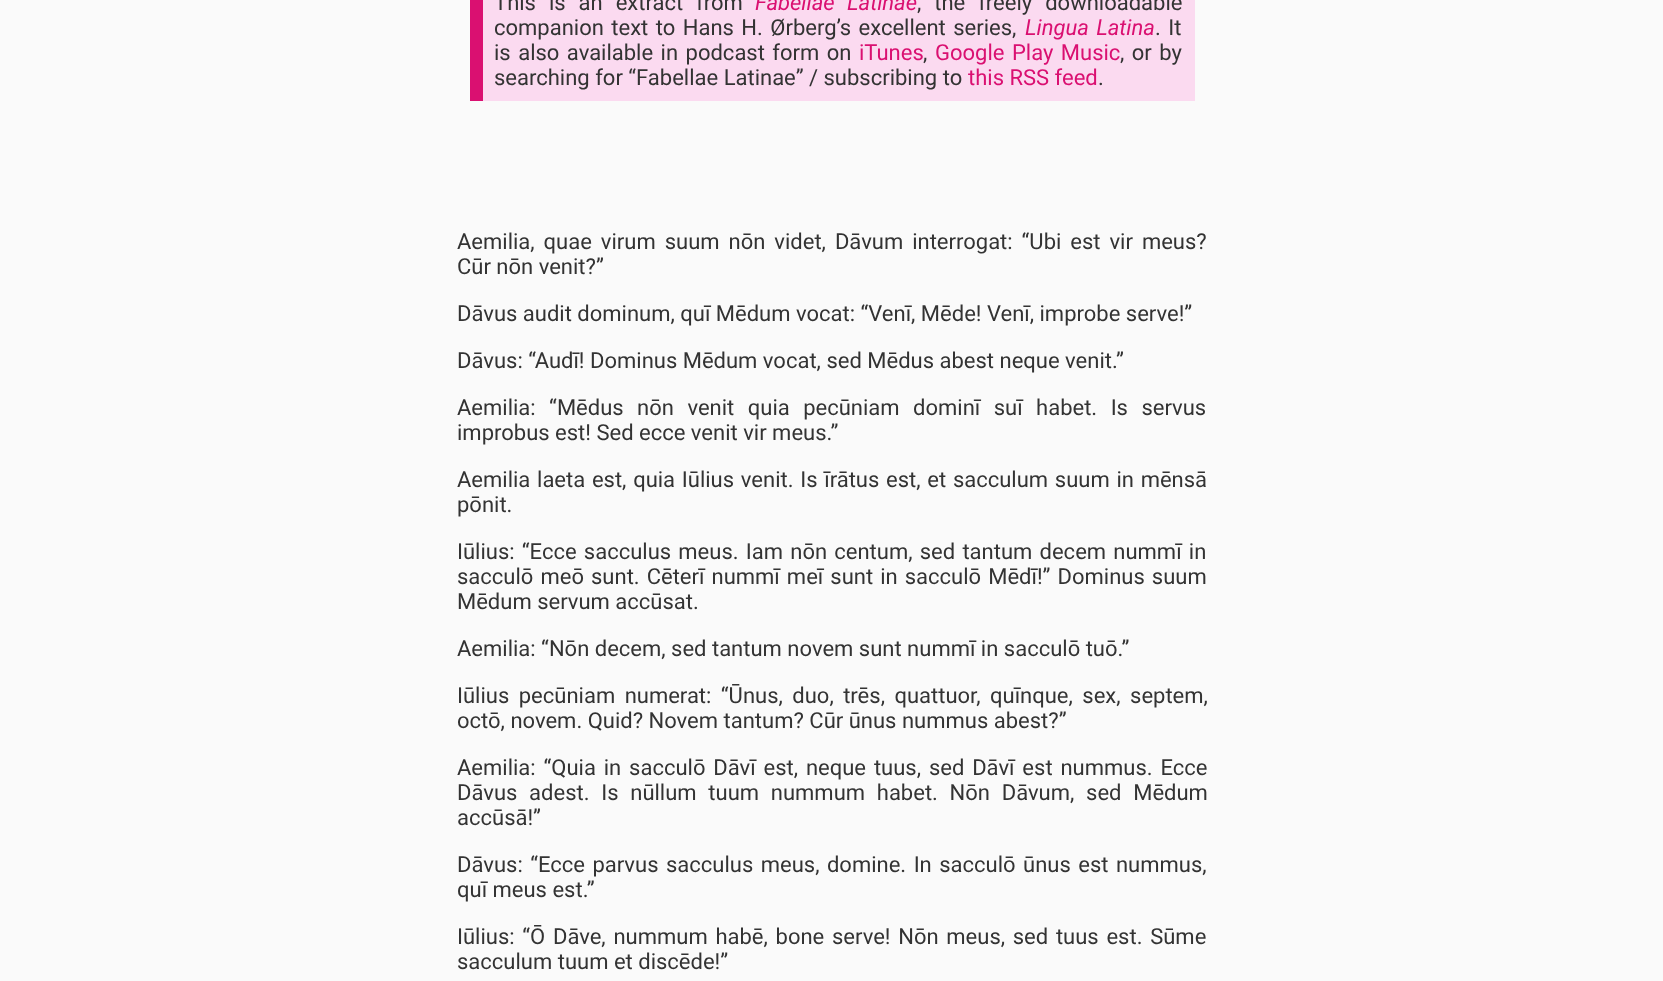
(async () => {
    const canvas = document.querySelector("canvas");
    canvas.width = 1663;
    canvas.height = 981;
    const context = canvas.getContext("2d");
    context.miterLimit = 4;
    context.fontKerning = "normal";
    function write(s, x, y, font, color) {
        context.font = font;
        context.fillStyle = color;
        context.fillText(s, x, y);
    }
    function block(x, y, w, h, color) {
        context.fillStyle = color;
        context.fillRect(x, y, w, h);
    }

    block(0, 0, 1663, 981, "rgb(250, 250, 250)");
    block(483, 0, 712, 101, "rgb(251, 218, 240)");
    block(470, 0, 13, 101, "rgb(218, 16, 113)");
    context.wordSpacing = "7.5px";
    write("This is an extract from", 494, 10, "22px Roboto", "rgb(51, 51, 51)");
    context.wordSpacing = "7px";
    write("Fabellae Latinae", 755, 10, "italic 22px Roboto", "rgb(218, 16, 113)");
    context.wordSpacing = "7.5px";
    write(", the freely downloadable", 917, 10, "22px Roboto", "rgb(51, 51, 51)");
    context.wordSpacing = "2px";
    write("companion text to Hans H. Ørberg’s excellent series,", 494, 35, "22px Roboto", "rgb(51, 51, 51)");
    write("Lingua Latina", 1025, 35, "italic 22px Roboto", "rgb(218, 16, 113)");
    write(". It", 1155, 35, "22px Roboto", "rgb(51, 51, 51)");
    write("is also available in podcast form on", 494, 60, "22px Roboto", "rgb(51, 51, 51)");
    context.wordSpacing = "0px";
    write("iTunes", 859, 60, "22px Roboto", "rgb(218, 16, 113)");
    write(",", 923, 60, "22px Roboto", "rgb(51, 51, 51)");
    context.wordSpacing = "2px";
    write("Google Play Music", 935, 60, "22px Roboto", "rgb(218, 16, 113)");
    write(", or by", 1120, 60, "22px Roboto", "rgb(51, 51, 51)");
    context.wordSpacing = "0px";
    write("searching for “Fabellae Latinae” / subscribing to", 494, 85, "22px Roboto", "rgb(51, 51, 51)");
    write("this RSS feed", 968, 85, "22px Roboto", "rgb(218, 16, 113)");
    write(".", 1098, 85, "22px Roboto", "rgb(51, 51, 51)");
    context.wordSpacing = "3.5px";
    write("Aemilia, quae virum suum nōn videt, Dāvum interrogat: “Ubi est vir meus?", 457, 249, "22px 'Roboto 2'", "rgb(51, 51, 51)");
    context.wordSpacing = "0px";
    write("Cūr nōn venit?”", 457, 274, "22px 'Roboto 2'", "rgb(51, 51, 51)");
    write("Dāvus audit dominum, quī Mēdum vocat: “Venī, Mēde! Venī, improbe serve!”", 457, 321, "22px 'Roboto 2'", "rgb(51, 51, 51)");
    write("Dāvus: “Audī! Dominus Mēdum vocat, sed Mēdus abest neque venit.”", 457, 368, "22px 'Roboto 2'", "rgb(51, 51, 51)");
    context.wordSpacing = "8px";
    write("Aemilia: “Mēdus nōn venit quia pecūniam dominī suī habet. Is servus", 457, 415, "22px 'Roboto 2'", "rgb(51, 51, 51)");
    context.wordSpacing = "0px";
    write("improbus est! Sed ecce venit vir meus.”", 457, 440, "22px Roboto", "rgb(51, 51, 51)");
    context.wordSpacing = "1.25px";
    write("Aemilia laeta est, quia Iūlius venit. Is īrātus est, et sacculum suum in mēnsā", 457, 487, "22px 'Roboto 2'", "rgb(51, 51, 51)");
    context.wordSpacing = "0px";
    write("pōnit.", 457, 512, "22px 'Roboto 2'", "rgb(51, 51, 51)");
    context.wordSpacing = "1.75px";
    write("Iūlius: “Ecce sacculus meus. Iam nōn centum, sed tantum decem nummī in", 457, 559, "22px 'Roboto 2'", "rgb(51, 51, 51)");
    context.wordSpacing = "1.6px";
    write("sacculō meō sunt. Cēterī nummī meī sunt in sacculō Mēdī!” Dominus suum", 457, 584, "22px 'Roboto 2'", "rgb(51, 51, 51)");
    context.wordSpacing = "0px";
    write("Mēdum servum accūsat.", 457, 609, "22px 'Roboto 2'", "rgb(51, 51, 51)");
    write("Aemilia: “Nōn decem, sed tantum novem sunt nummī in sacculō tuō.”", 457, 656, "22px 'Roboto 2'", "rgb(51, 51, 51)");
    context.wordSpacing = "4px";
    write("Iūlius pecūniam numerat: “Ūnus, duo, trēs, quattuor, quīnque, sex, septem,", 457, 703, "22px 'Roboto 2'", "rgb(51, 51, 51)");
    context.wordSpacing = "0px";
    write("octō, novem. Quid? Novem tantum? Cūr ūnus nummus abest?”", 457, 728, "22px 'Roboto 2'", "rgb(51, 51, 51)");
    context.wordSpacing = "2.4px";
    write("Aemilia: “Quia in sacculō Dāvī est, neque tuus, sed Dāvī est nummus. Ecce", 457, 775, "22px 'Roboto 2'", "rgb(51, 51, 51)");
    context.wordSpacing = "6.25px";
    write("Dāvus adest. Is nūllum tuum nummum habet. Nōn Dāvum, sed Mēdum", 457, 800, "22px 'Roboto 2'", "rgb(51, 51, 51)");
    context.wordSpacing = "0px";
    write("accūsā!”", 457, 825, "22px 'Roboto 2'", "rgb(51, 51, 51)");
    context.wordSpacing = "2px";
    write("Dāvus: “Ecce parvus sacculus meus, domine. In sacculō ūnus est nummus,", 457, 872, "22px 'Roboto 2'", "rgb(51, 51, 51)");
    context.wordSpacing = "0px";
    write("quī meus est.”", 457, 897, "22px 'Roboto 2'", "rgb(51, 51, 51)");
    context.wordSpacing = "2.25px";
    write("Iūlius: “Ō Dāve, nummum habē, bone serve! Nōn meus, sed tuus est. Sūme", 457, 944, "22px 'Roboto 2'", "rgb(51, 51, 51)");
    context.wordSpacing = "0px";
    write("sacculum tuum et discēde!”", 457, 969, "22px 'Roboto 2'", "rgb(51, 51, 51)");
})();
